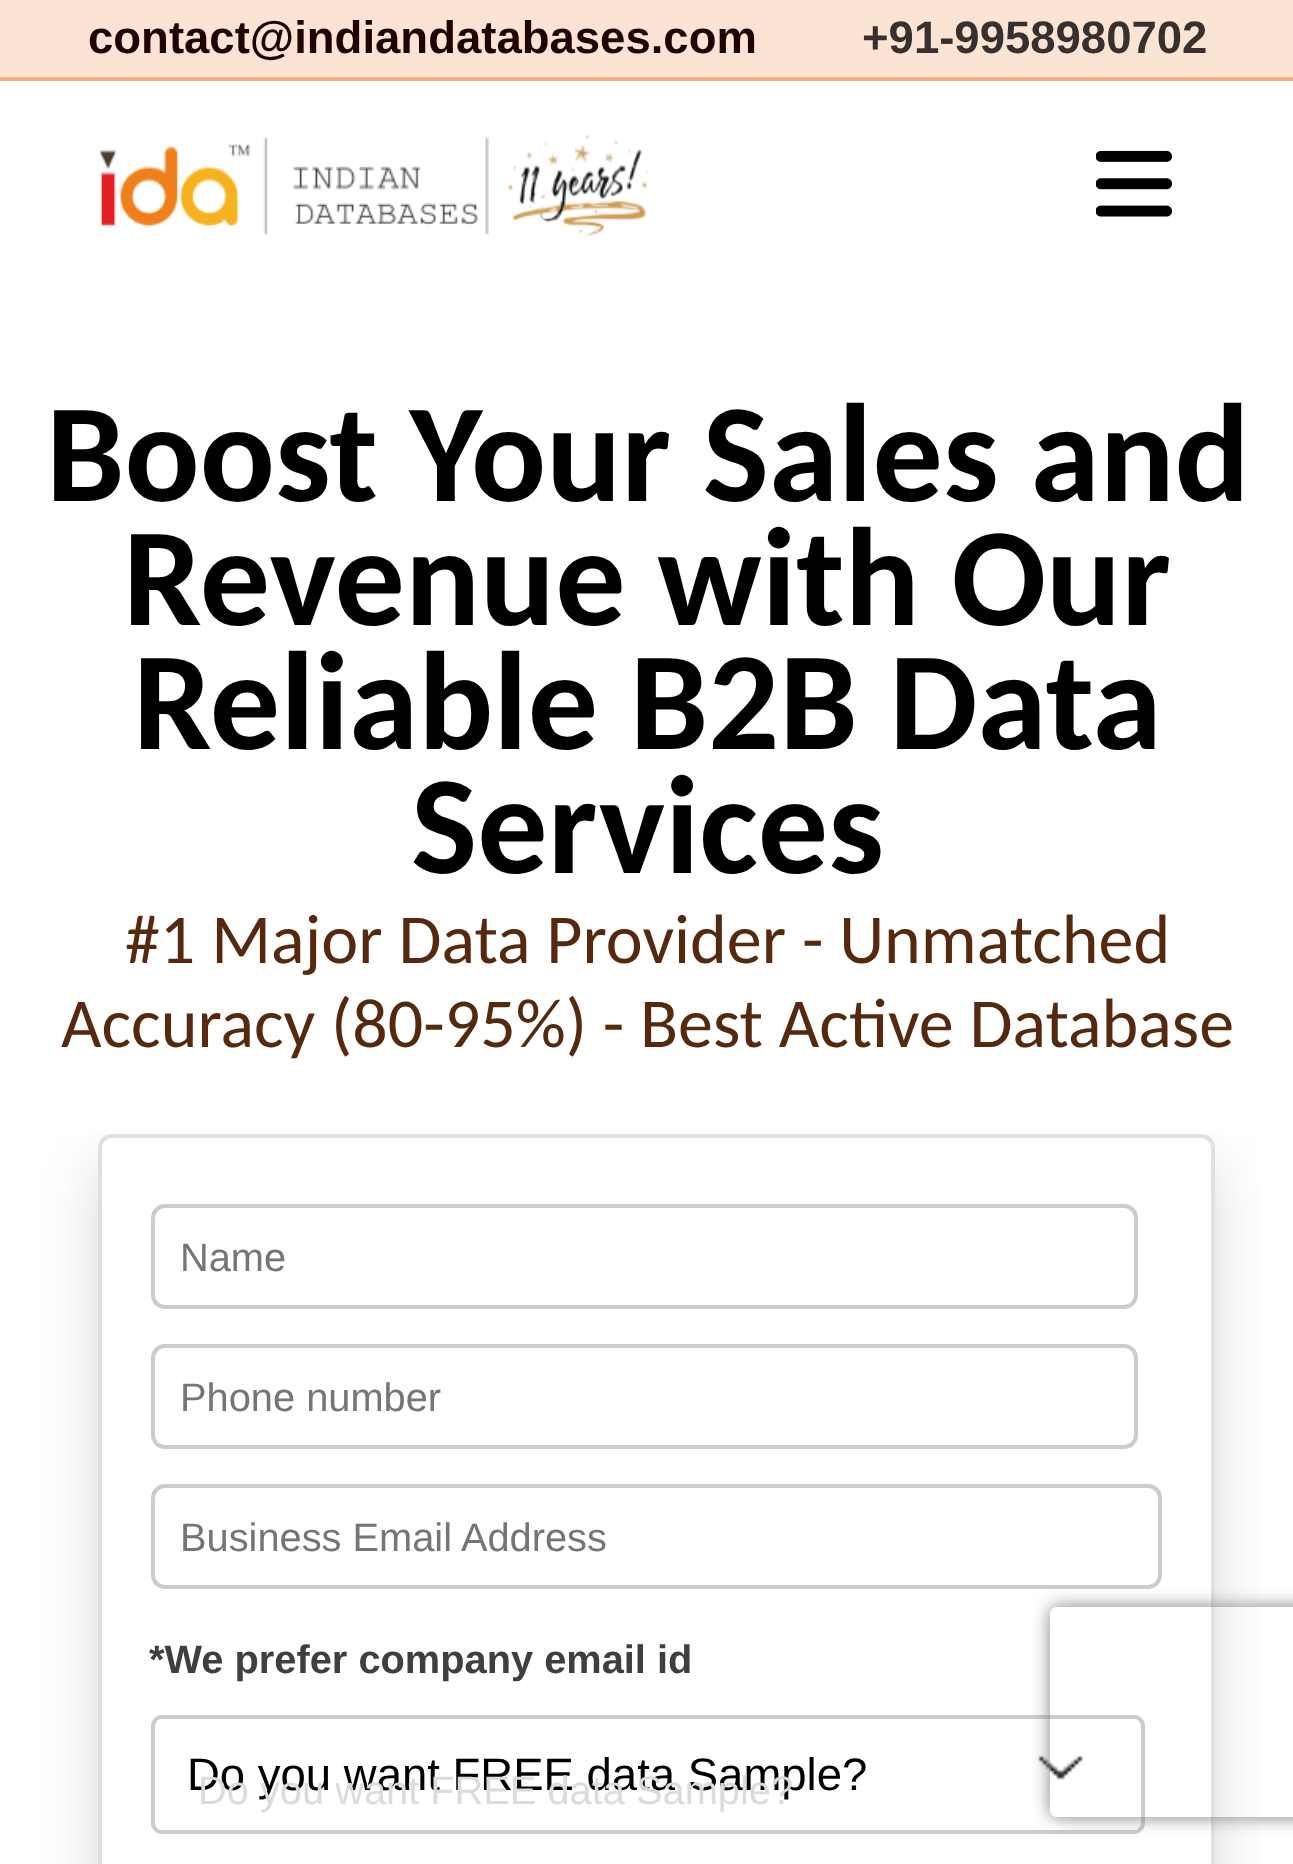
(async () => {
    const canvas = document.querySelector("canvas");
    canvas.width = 1293;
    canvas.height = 1864;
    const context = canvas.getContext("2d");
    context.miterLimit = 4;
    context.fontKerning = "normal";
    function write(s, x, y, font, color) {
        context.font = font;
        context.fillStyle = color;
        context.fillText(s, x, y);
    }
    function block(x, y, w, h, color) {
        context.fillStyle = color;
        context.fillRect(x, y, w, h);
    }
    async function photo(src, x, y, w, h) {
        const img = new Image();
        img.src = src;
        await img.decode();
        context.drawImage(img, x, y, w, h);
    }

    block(0, 0, 1293, 1864, "rgb(255, 255, 255)");
    block(0, 0, 1293, 77, "rgb(252, 228, 212)");
    block(0, 77, 1293, 4, "rgb(248, 173, 126)");
    write("contact@indiandatabases.com", 88, 53, "bold 45.5px Liberation Sans", "rgb(31, 4, 4)");
    write("+91-9958980702", 862, 53, "bold 45.5px Liberation Sans", "rgb(56, 47, 47)");
    await photo("media/1.png", 99, 134, 549, 103);
    await photo("media/2.png", 1096, 150, 77, 67);
    write("Boost Your Sales and", 46, 501, "bold 140px Carlito", "rgb(0, 0, 0)");
    write("Revenue with Our", 123, 625, "bold 140px Carlito", "rgb(0, 0, 0)");
    write("Reliable B2B Data", 133, 749, "bold 140px Carlito", "rgb(0, 0, 0)");
    write("Services", 411, 873, "bold 140px Carlito", "rgb(0, 0, 0)");
    write("#1 Major Data Provider - Unmatched", 125, 963, "70px Carlito", "rgb(86, 41, 14)");
    write("Accuracy (80-95%) - Best Active Database", 61, 1047, "70px Carlito", "rgb(86, 41, 14)");
    context.save();
    context.beginPath();
    context.rect(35, 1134, 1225, 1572);
    context.clip();
    context.beginPath();
    context.moveTo(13, 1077);
    context.lineTo(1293, 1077);
    context.lineTo(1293, 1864);
    context.lineTo(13, 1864);
    context.closePath();
    context.moveTo(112, 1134);
    context.lineTo(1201, 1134);
    context.bezierCurveTo(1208.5, 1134, 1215, 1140.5, 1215, 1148);
    context.lineTo(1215, 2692);
    context.bezierCurveTo(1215, 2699.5, 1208.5, 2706, 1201, 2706);
    context.lineTo(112, 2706);
    context.bezierCurveTo(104.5, 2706, 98, 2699.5, 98, 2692);
    context.lineTo(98, 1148);
    context.bezierCurveTo(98, 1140.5, 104.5, 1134, 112, 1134);
    context.closePath();
    context.clip("evenodd");
    context.fillStyle = "rgba(0, 0, 0, 0.15)";
    context.filter = "blur(28px)";
    context.beginPath();
    context.roundRect(98, 1162, 1117, 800, 14);
    context.fill();
    context.filter = "none";
    context.restore();
    context.beginPath();
    context.roundRect(100, 1136, 1113, 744, 12);
    context.strokeStyle = "rgba(0, 0, 0, 0.12)";
    context.lineWidth = 4;
    context.stroke();
    context.beginPath();
    context.roundRect(153, 1206, 983, 101, 12);
    context.strokeStyle = "rgb(204, 204, 204)";
    context.stroke();
    write("Name", 180, 1271, "39.8px Liberation Sans", "rgb(117, 117, 117)");
    context.beginPath();
    context.roundRect(153, 1346, 983, 101, 12);
    context.stroke();
    write("Phone number", 180, 1411, "39.8px Liberation Sans", "rgb(117, 117, 117)");
    context.beginPath();
    context.roundRect(153, 1486, 1007, 101, 12);
    context.stroke();
    write("Business Email Address", 180, 1551, "39.8px Liberation Sans", "rgb(117, 117, 117)");
    write("*We prefer company email id", 149, 1673, "bold 39.8px Liberation Sans", "rgb(63, 63, 63)");
    context.beginPath();
    context.roundRect(153, 1717, 990, 115, 9);
    context.stroke();
    await photo("media/3.png", 1038, 1755, 45, 25);
    write("Do you want FREE data Sample?", 187, 1790, "45.5px Liberation Sans", "rgb(0, 0, 0)");
    write("Do you want FREE data Sample?", 198, 1804, "39.8px Liberation Sans", "rgb(219, 219, 219)");
    context.save();
    context.beginPath();
    context.moveTo(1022, 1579);
    context.lineTo(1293, 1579);
    context.lineTo(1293, 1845);
    context.lineTo(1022, 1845);
    context.closePath();
    context.moveTo(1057, 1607);
    context.lineTo(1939, 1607);
    context.bezierCurveTo(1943, 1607, 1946, 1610, 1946, 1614);
    context.lineTo(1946, 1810);
    context.bezierCurveTo(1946, 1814, 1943, 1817, 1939, 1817);
    context.lineTo(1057, 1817);
    context.bezierCurveTo(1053, 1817, 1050, 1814, 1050, 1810);
    context.lineTo(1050, 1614);
    context.bezierCurveTo(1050, 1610, 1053, 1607, 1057, 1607);
    context.closePath();
    context.clip("evenodd");
    context.fillStyle = "rgb(128, 128, 128)";
    context.filter = "blur(9px)";
    context.beginPath();
    context.roundRect(1050, 1607, 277, 210, 7);
    context.fill();
    context.filter = "none";
    context.restore();
})();
